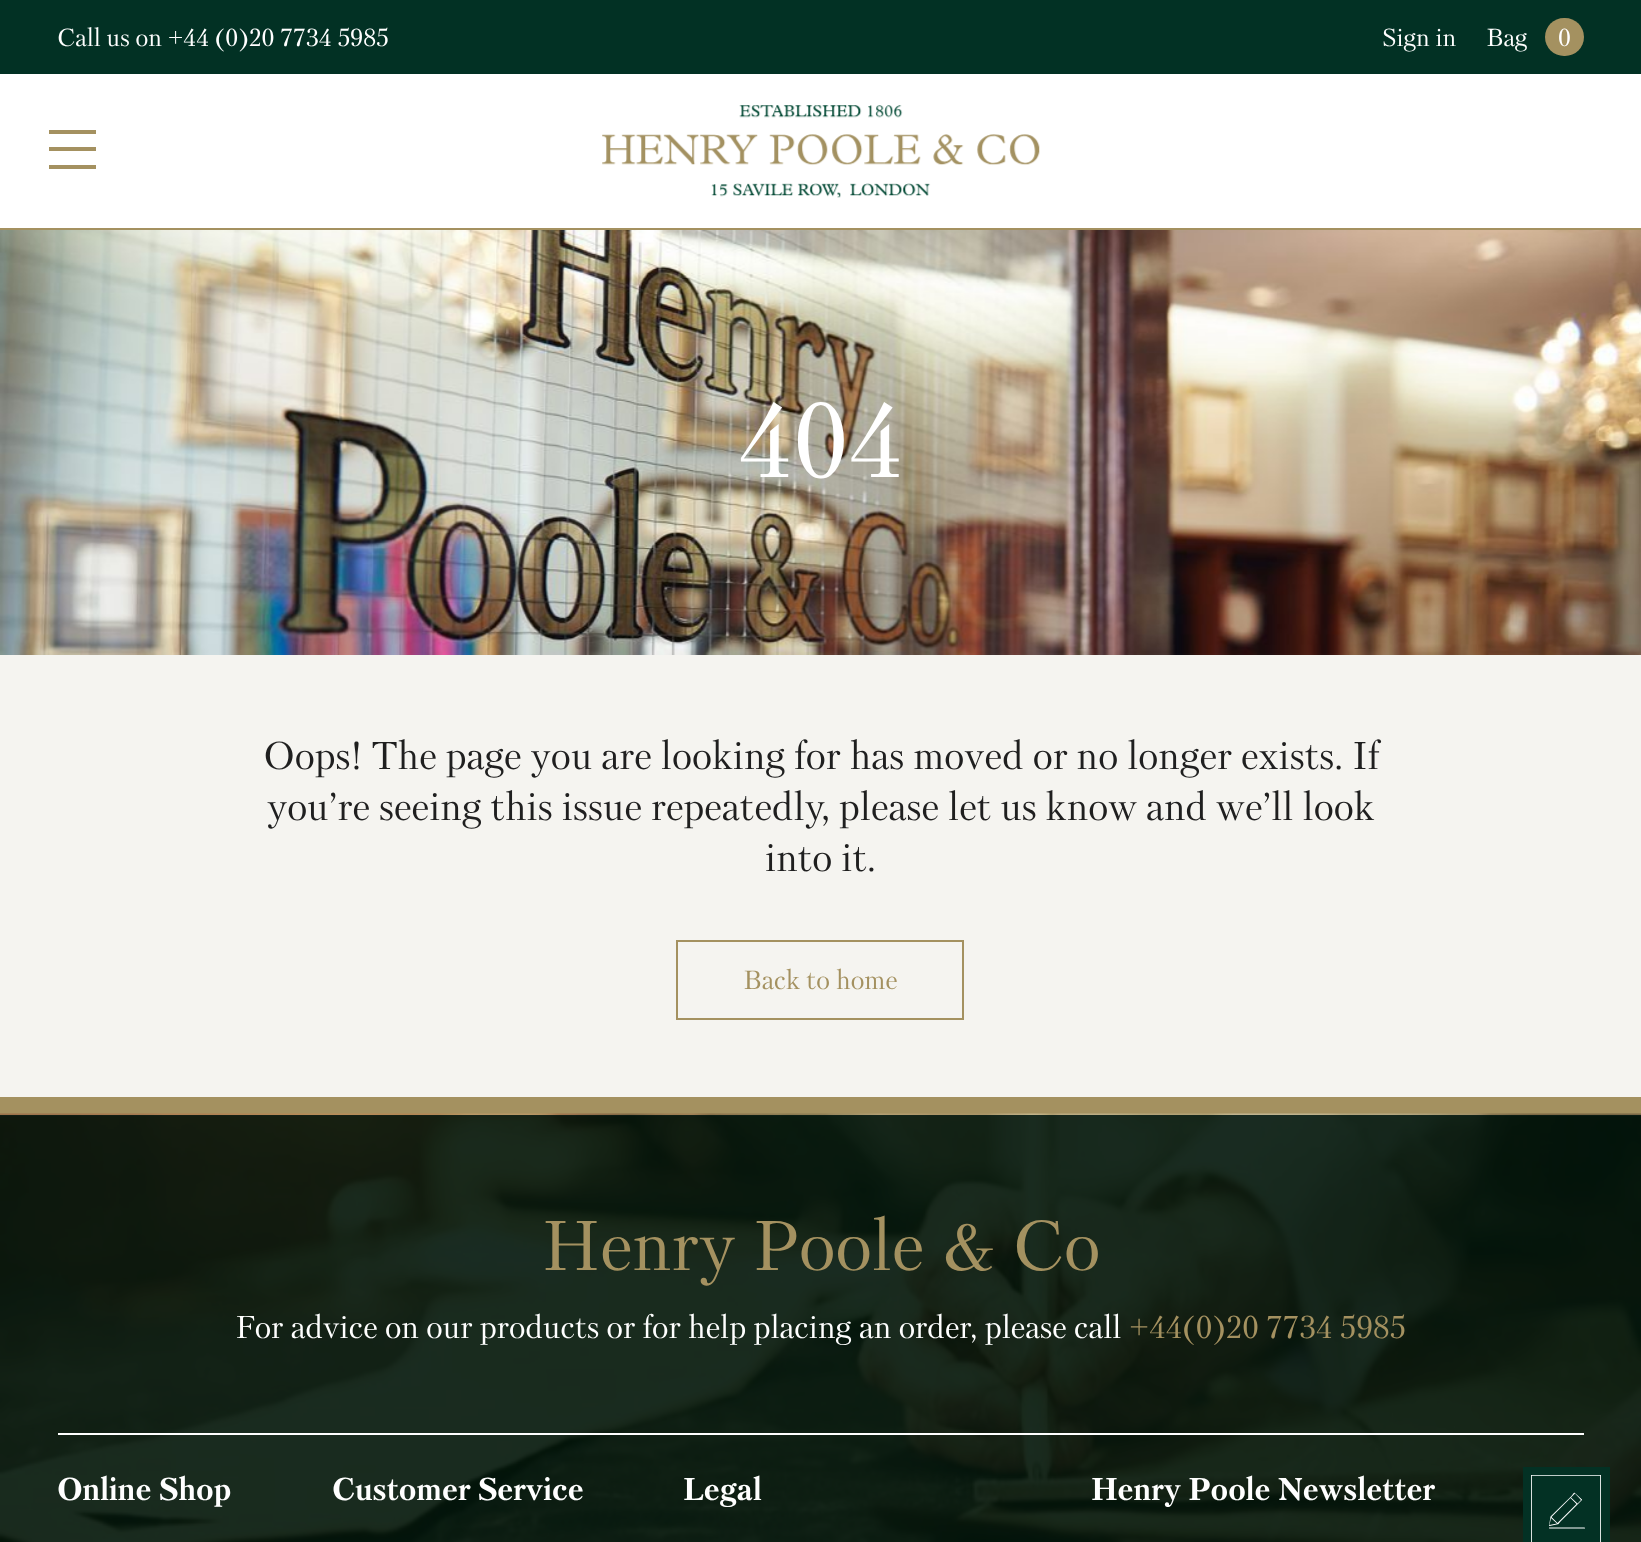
(async () => {
    const canvas = document.querySelector("canvas");
    canvas.width = 1641;
    canvas.height = 1542;
    const context = canvas.getContext("2d");
    context.miterLimit = 4;
    context.fontKerning = "normal";
    function write(s, x, y, font, color) {
        context.font = font;
        context.fillStyle = color;
        context.fillText(s, x, y);
    }
    function block(x, y, w, h, color) {
        context.fillStyle = color;
        context.fillRect(x, y, w, h);
    }
    function card(x, y, w, h, r, color) {
        context.fillStyle = color;
        context.beginPath();
        context.roundRect(x, y, w, h, r);
        context.fill();
    }
    async function photo(src, x, y, w, h) {
        const img = new Image();
        img.src = src;
        await img.decode();
        context.drawImage(img, x, y, w, h);
    }

    block(0, 0, 1641, 1542, "rgb(255, 255, 255)");
    block(0, 1115, 1641, 1, "rgb(25, 43, 34)");
    block(0, 0, 1641, 74, "rgb(2, 49, 36)");
    write("Call us on +44 (0)20 7734 5985", 57, 46, "24.5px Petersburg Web", "rgb(255, 255, 255)");
    write("Sign in", 1382, 46, "24.5px Petersburg Web", "rgb(255, 255, 255)");
    write("Bag", 1486, 46, "24.5px Petersburg Web", "rgb(255, 255, 255)");
    card(1545, 18, 39, 38, 19, "rgb(164, 145, 96)");
    write("0", 1558, 46, "24.5px Petersburg Web", "rgb(255, 255, 255)");
    block(0, 228, 1641, 2, "rgb(164, 145, 96)");
    block(49, 130, 47, 4, "rgb(164, 145, 96)");
    block(49, 147, 47, 4, "rgb(164, 145, 96)");
    block(49, 165, 47, 4, "rgb(164, 145, 96)");
    await photo("media/1.png", 602, 105, 438, 93);
    await photo("media/2.png", 0, 230, 1641, 425);
    write("404", 738, 477, "105px Petersburg Web", "rgb(255, 255, 255)");
    block(0, 655, 1641, 442, "rgb(245, 244, 240)");
    write("Oops! The page you are looking for has moved or no longer exists. If", 263, 769, "38.5px Petersburg Web", "rgb(31, 31, 31)");
    write("you’re seeing this issue repeatedly, please let us know and we’ll look", 267, 820, "38.5px Petersburg Web", "rgb(31, 31, 31)");
    write("into it.", 765, 871, "38.5px Petersburg Web", "rgb(31, 31, 31)");
    context.strokeStyle = "rgb(164, 145, 96)";
    context.lineWidth = 2;
    context.strokeRect(677, 941, 286, 78);
    write("Back to home", 743, 989, "26.25px Petersburg Web", "rgb(164, 145, 96)");
    block(0, 1097, 1641, 18, "rgb(164, 145, 96)");
    await photo("media/3.png", 0, 1113, 1641, 429);
    block(58, 1433, 1526, 2, "rgb(255, 255, 255)");
    write("Henry Poole & Co", 541, 1270, "70px Petersburg Web", "rgb(164, 145, 96)");
    write("For advice on our products or for help placing an order, please call", 235, 1338, "31.5px Petersburg Web", "rgb(255, 255, 255)");
    write("+44(0)20 7734 5985", 1129, 1338, "31.5px Petersburg Web", "rgb(164, 145, 96)");
    write("Online Shop", 57, 1500, "bold 31.5px Petersburg Web", "rgb(255, 255, 255)");
    write("Customer Service", 332, 1500, "bold 31.5px Petersburg Web", "rgb(255, 255, 255)");
    write("Legal", 683, 1500, "bold 31.5px Petersburg Web", "rgb(255, 255, 255)");
    write("Henry Poole Newsletter", 1091, 1500, "bold 31.5px Petersburg Web", "rgb(255, 255, 255)");
    block(1523, 1467, 87, 75, "rgb(3, 49, 36)");
    context.save();
    context.beginPath();
    context.moveTo(1531, 1475);
    context.lineTo(1601, 1475);
    context.lineTo(1601, 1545);
    context.lineTo(1531, 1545);
    context.closePath();
    context.clip();
    context.beginPath();
    context.moveTo(1531, 1475);
    context.lineTo(1601, 1475);
    context.lineTo(1601, 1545);
    context.lineTo(1531, 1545);
    context.closePath();
    context.strokeStyle = "rgb(255, 255, 255)";
    context.lineWidth = 1.7;
    context.stroke();
    context.restore();
    context.fillStyle = "rgb(255, 255, 255)";
    context.beginPath();
    context.moveTo(1549.5, 1526);
    context.lineTo(1556.5, 1524.5);
    context.bezierCurveTo(1559.5, 1524, 1558, 1524, 1562, 1520);
    context.lineTo(1582, 1500);
    context.lineTo(1582, 1499.5);
    context.lineTo(1576, 1494);
    context.bezierCurveTo(1573.5, 1491.5, 1574.5, 1493, 1570.5, 1497);
    context.lineTo(1550.5, 1516.5);
    context.lineTo(1549, 1526);
    context.closePath();
    context.moveTo(1575, 1493.5);
    context.lineTo(1581, 1500);
    context.lineTo(1577.5, 1503.5);
    context.lineTo(1571, 1497.5);
    context.closePath();
    context.moveTo(1570.5, 1498);
    context.lineTo(1576.5, 1504);
    context.lineTo(1557.5, 1523);
    context.lineTo(1551.5, 1517);
    context.closePath();
    context.moveTo(1551, 1518);
    context.lineTo(1557, 1523.5);
    context.lineTo(1549.5, 1525);
    context.closePath();
    context.fill("evenodd");
    context.beginPath();
    context.moveTo(1584.5, 1527.5);
    context.lineTo(1549, 1527.5);
    context.bezierCurveTo(1549, 1528, 1549, 1528.5, 1549.5, 1528.5);
    context.lineTo(1585, 1528.5);
    context.lineTo(1585, 1528);
    context.closePath();
    context.fill();
})();
